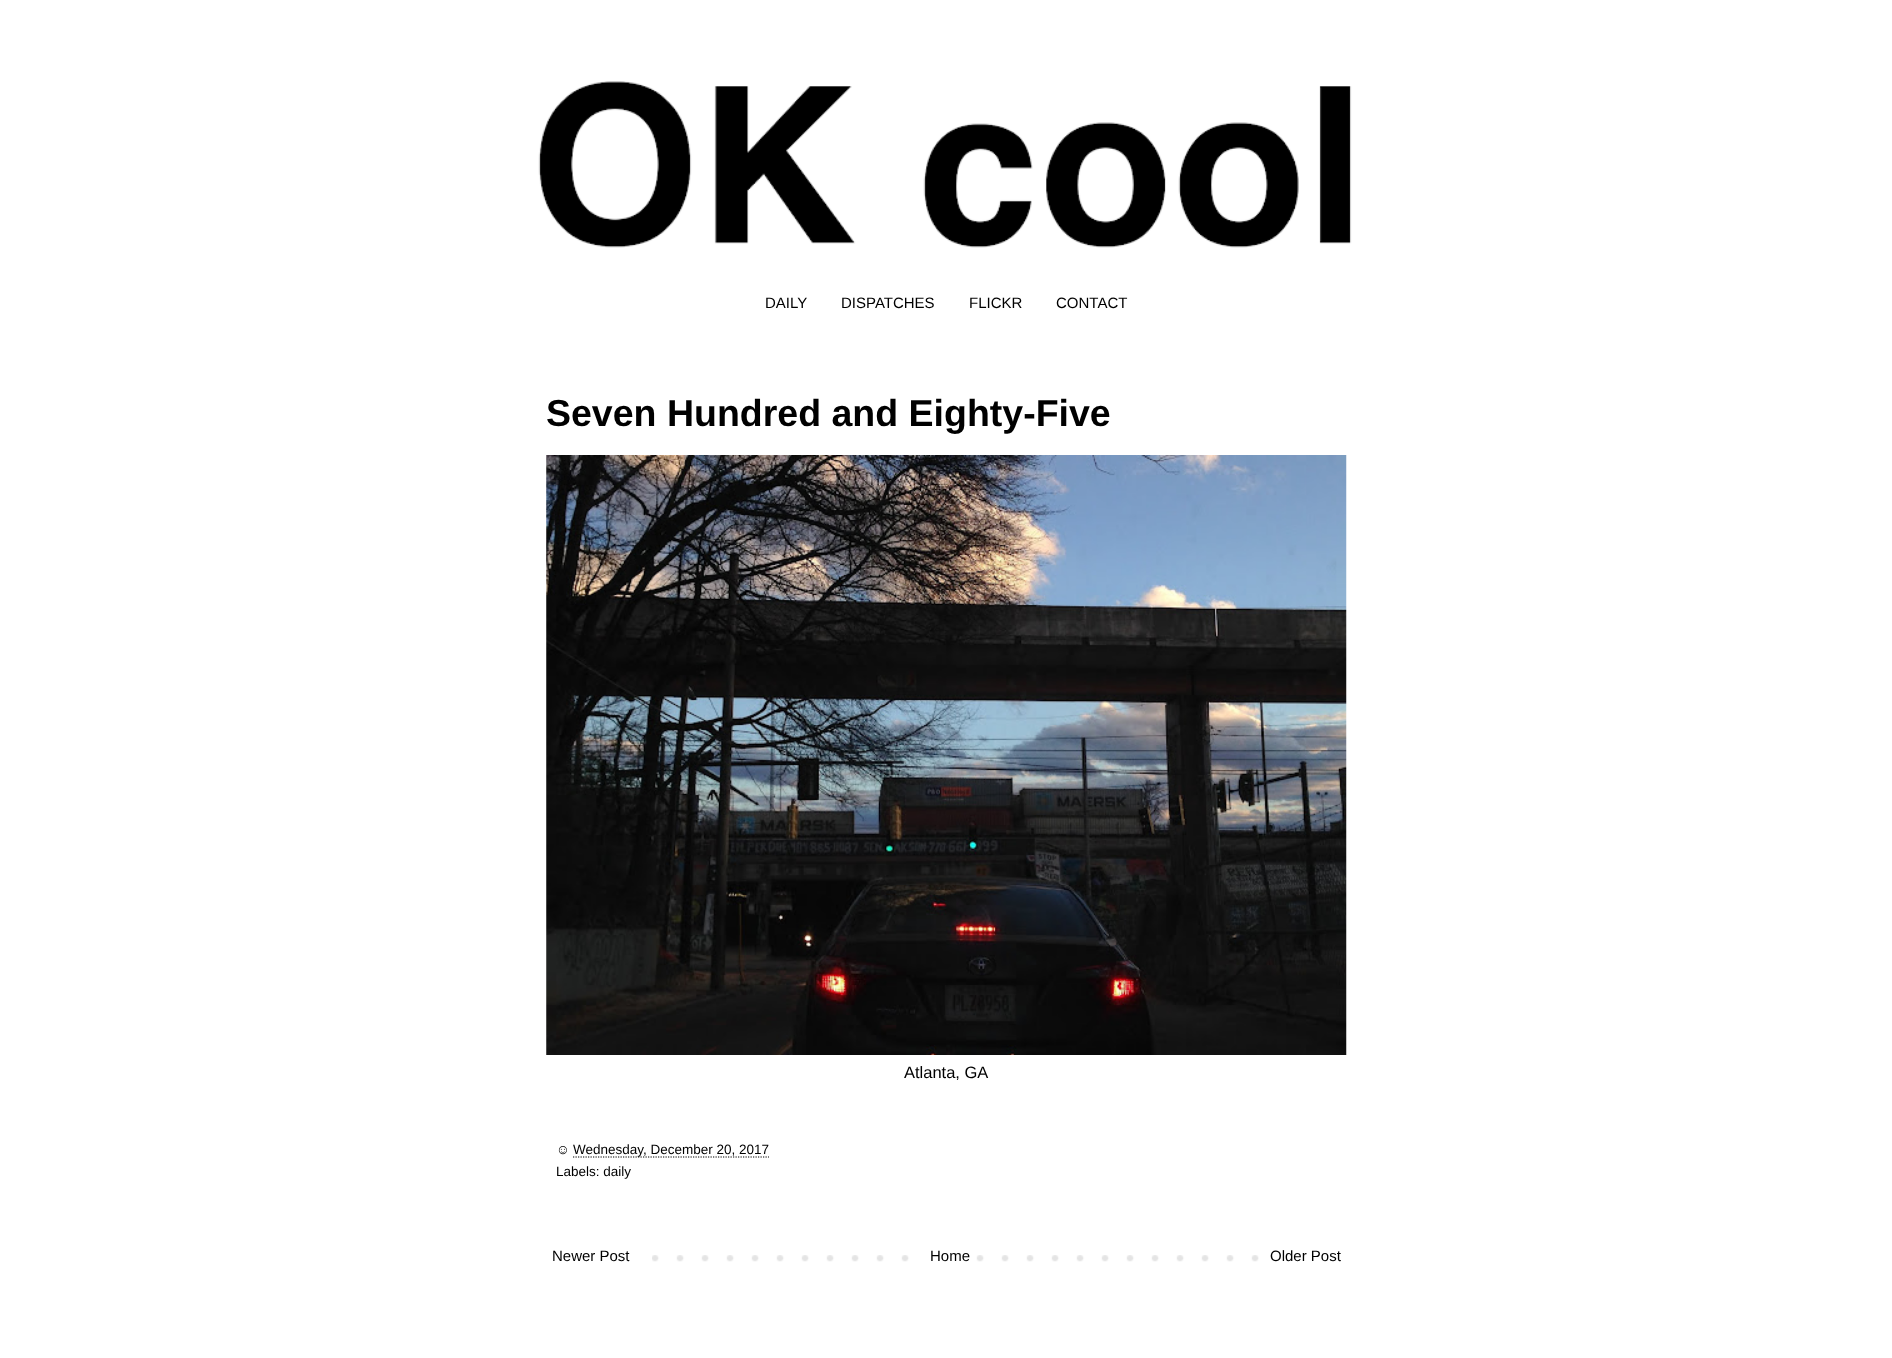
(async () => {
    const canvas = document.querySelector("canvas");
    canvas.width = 1892;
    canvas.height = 1358;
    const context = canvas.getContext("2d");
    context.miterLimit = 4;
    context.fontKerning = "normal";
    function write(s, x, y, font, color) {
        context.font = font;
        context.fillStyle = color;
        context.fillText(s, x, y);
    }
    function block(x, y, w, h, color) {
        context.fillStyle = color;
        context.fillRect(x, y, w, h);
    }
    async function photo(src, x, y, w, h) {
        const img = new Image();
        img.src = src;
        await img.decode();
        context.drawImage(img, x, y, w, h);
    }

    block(0, 0, 1892, 1358, "rgb(255, 255, 255)");
    await photo("media/1.png", 538, 81, 814, 167);
    write("DAILY", 765, 308, "15px Liberation Sans", "rgb(0, 0, 0)");
    write("DISPATCHES", 841, 308, "15px Liberation Sans", "rgb(0, 0, 0)");
    write("FLICKR", 969, 308, "15px Liberation Sans", "rgb(0, 0, 0)");
    write("CONTACT", 1056, 308, "15px Liberation Sans", "rgb(0, 0, 0)");
    write("Seven Hundred and Eighty-Five", 546, 426, "bold 37.5px Liberation Sans", "rgb(0, 0, 0)");
    await photo("media/2.png", 546, 455, 801, 600);
    write("Atlanta, GA", 904, 1078, "16.5px Liberation Sans", "rgb(0, 0, 0)");
    write("☺︎", 556, 1154, "13.5px Liberation Sans", "rgb(0, 0, 0)");
    context.beginPath();
    context.moveTo(573, 1157);
    context.lineTo(769, 1157);
    context.strokeStyle = "rgb(0, 0, 0)";
    context.lineWidth = 1.2;
    context.setLineDash([1.25, 1.25]);
    context.stroke();
    write("Wednesday, December 20, 2017", 573, 1154, "13.5px Liberation Sans", "rgb(0, 0, 0)");
    write("Labels: daily", 556, 1176, "13.5px Liberation Sans", "rgb(0, 0, 0)");
    await photo("media/3.png", 652, 1255, 607, 7);
    write("Newer Post", 552, 1261, "15px Liberation Sans", "rgb(0, 0, 0)");
    block(926, 1255, 33, 7, "rgb(255, 255, 255)");
    write("Home", 930, 1261, "15px Liberation Sans", "rgb(0, 0, 0)");
    write("Older Post", 1270, 1261, "15px Liberation Sans", "rgb(0, 0, 0)");
})();
